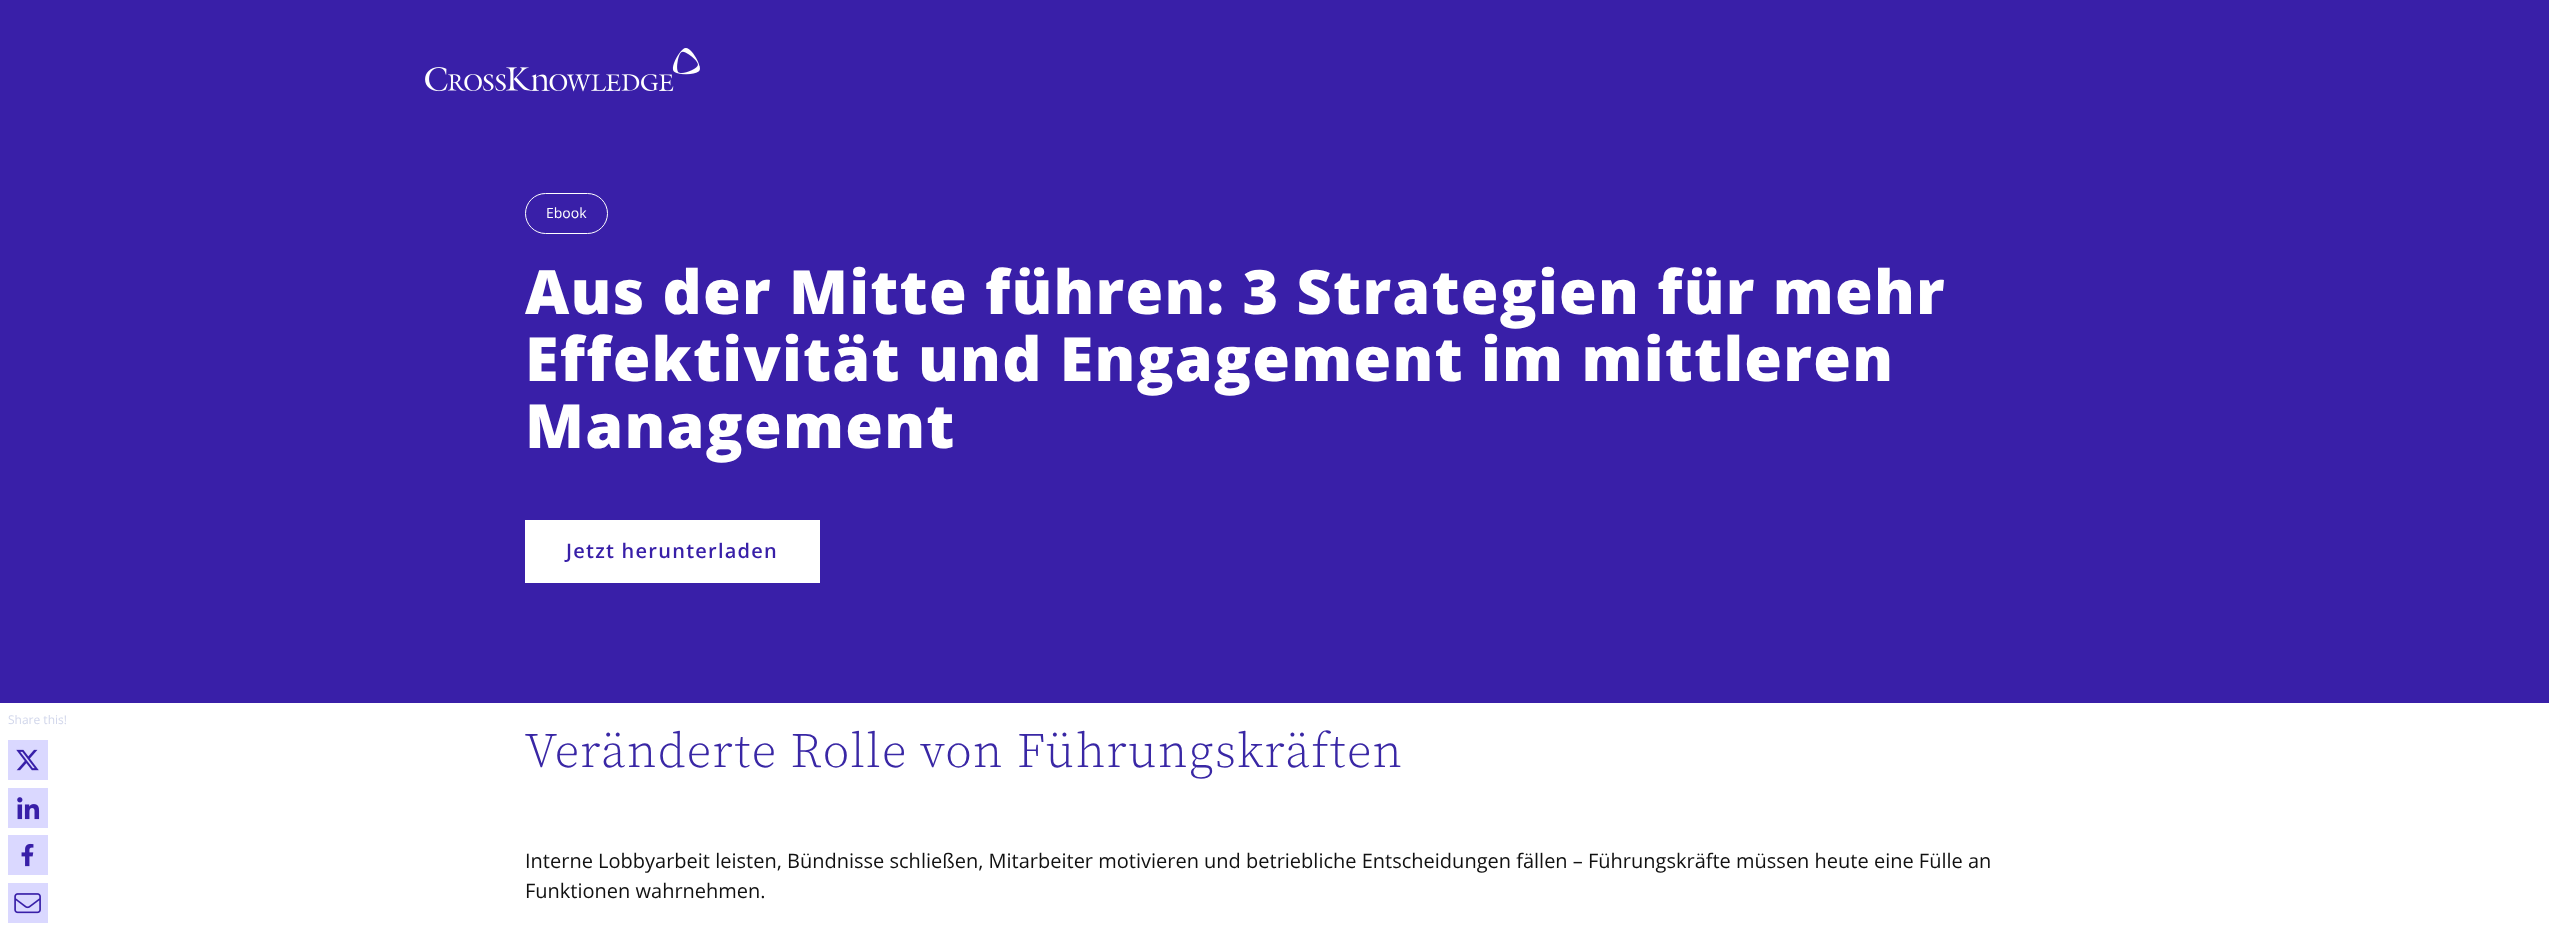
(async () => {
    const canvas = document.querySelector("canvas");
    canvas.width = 2549;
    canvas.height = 927;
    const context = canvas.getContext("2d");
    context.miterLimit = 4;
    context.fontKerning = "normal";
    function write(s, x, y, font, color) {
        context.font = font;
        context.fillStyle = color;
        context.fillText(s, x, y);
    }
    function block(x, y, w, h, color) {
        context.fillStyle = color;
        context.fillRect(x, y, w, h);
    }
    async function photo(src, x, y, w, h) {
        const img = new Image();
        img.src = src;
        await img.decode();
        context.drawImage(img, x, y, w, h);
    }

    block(0, 0, 2549, 927, "rgb(255, 255, 255)");
    block(0, 0, 2549, 703, "rgb(57, 31, 168)");
    await photo("media/1.png", 425, 48, 275, 44);
    context.beginPath();
    context.roundRect(525.5, 193.5, 82, 40, 20);
    context.strokeStyle = "rgb(255, 255, 255)";
    context.stroke();
    write("Ebook", 546, 218, "14px Open Sans", "rgb(255, 255, 255)");
    context.letterSpacing = "1.25px";
    write("Aus der Mitte führen: 3 Strategien für mehr", 525, 314, "800 61px Open Sans", "rgb(255, 255, 255)");
    write("Effektivität und Engagement im mittleren", 525, 381, "800 61px Open Sans", "rgb(255, 255, 255)");
    write("Management", 525, 448, "800 61px Open Sans", "rgb(255, 255, 255)");
    block(525, 520, 295, 63, "rgb(255, 255, 255)");
    write("Jetzt herunterladen", 566, 558, "600 20px Open Sans", "rgb(56, 31, 168)");
    context.letterSpacing = "0px";
    write("Share this!", 8, 724, "12px Open Sans", "rgb(210, 215, 235)");
    block(8, 740, 40, 40, "rgb(218, 216, 255)");
    await photo("media/2.png", 16, 749, 23, 22);
    block(8, 788, 40, 40, "rgb(218, 216, 255)");
    await photo("media/3.png", 17, 797, 23, 23);
    block(8, 835, 40, 40, "rgb(218, 216, 255)");
    await photo("media/4.png", 21, 843, 13, 24);
    block(8, 883, 40, 40, "rgb(218, 216, 255)");
    await photo("media/5.png", 14, 893, 27, 21);
    context.letterSpacing = "1.25px";
    write("Veränderte Rolle von Führungskräften", 525, 767, "300 48.8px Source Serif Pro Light", "rgb(57, 39, 165)");
    context.letterSpacing = "0px";
    write("Interne Lobbyarbeit leisten, Bündnisse schließen, Mitarbeiter motivieren und betriebliche Entscheidungen fällen – Führungskräfte müssen heute eine Fülle an", 525, 868, "20px Open Sans", "rgb(17, 17, 17)");
    write("Funktionen wahrnehmen.", 525, 898, "20px Open Sans", "rgb(17, 17, 17)");
})();
